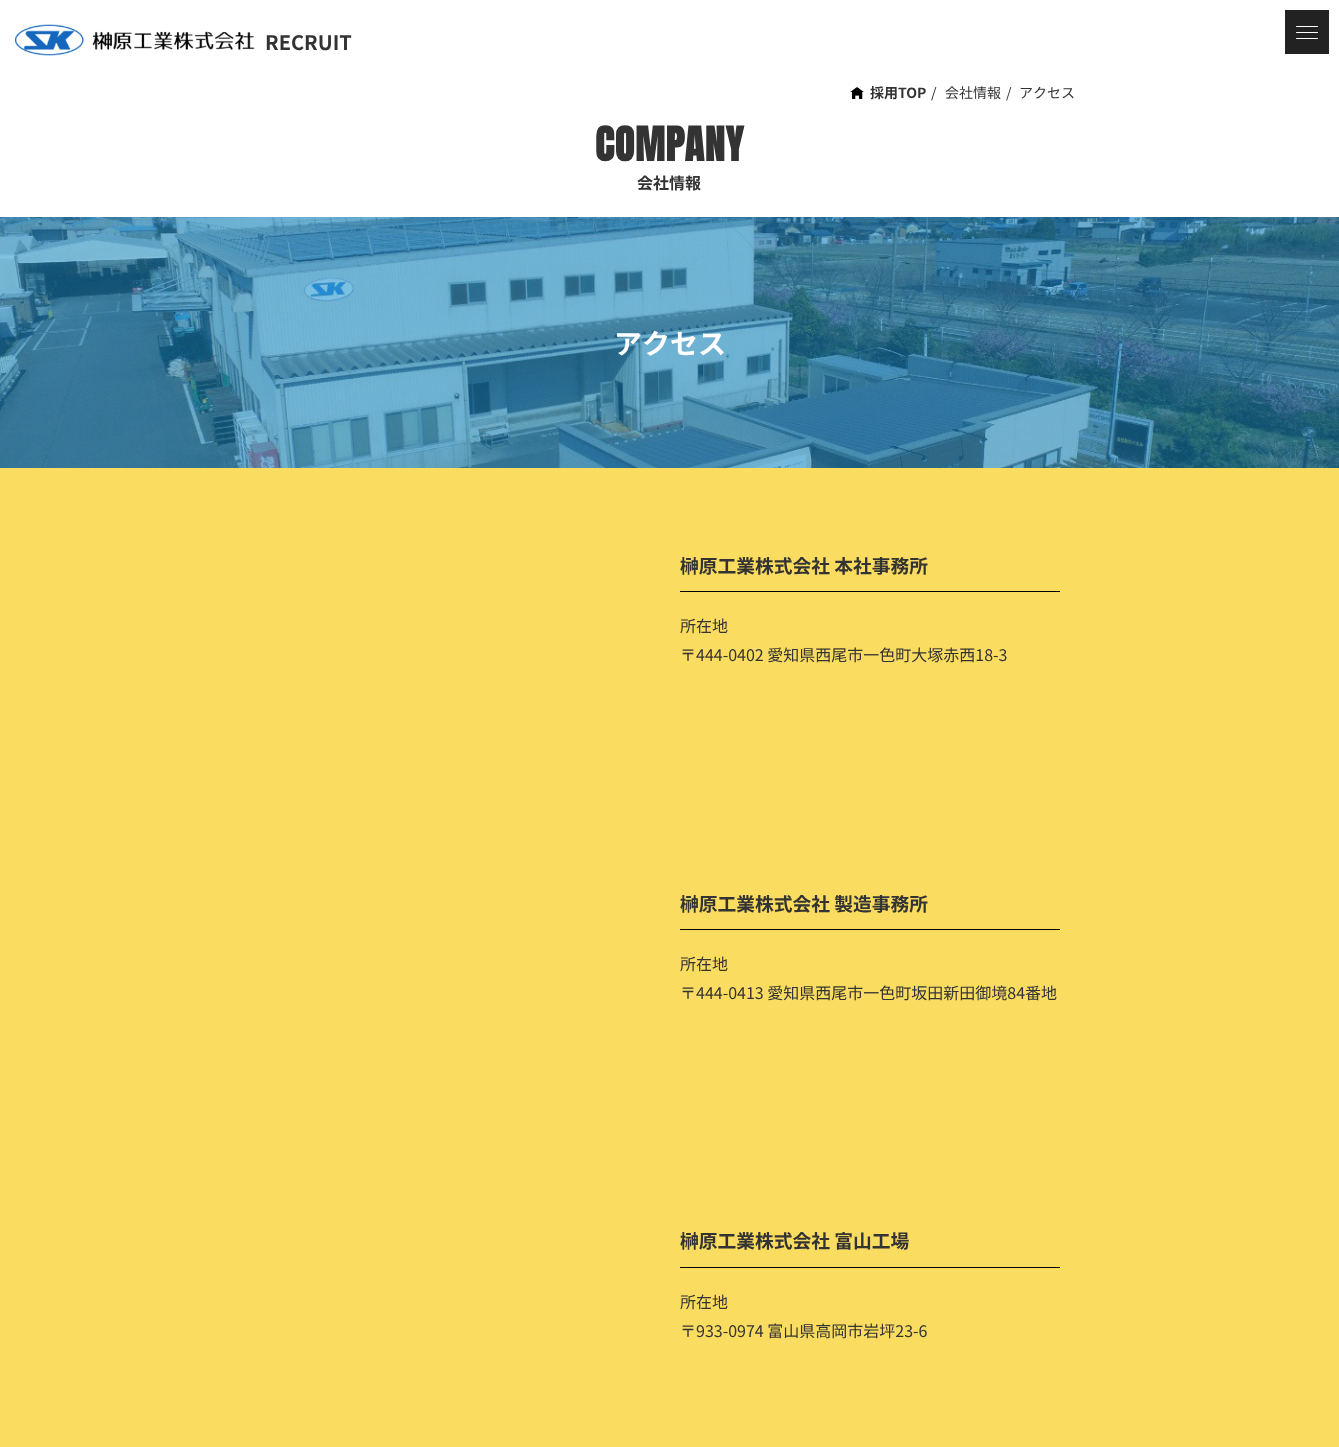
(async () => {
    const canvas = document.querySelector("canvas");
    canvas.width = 1339;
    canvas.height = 1447;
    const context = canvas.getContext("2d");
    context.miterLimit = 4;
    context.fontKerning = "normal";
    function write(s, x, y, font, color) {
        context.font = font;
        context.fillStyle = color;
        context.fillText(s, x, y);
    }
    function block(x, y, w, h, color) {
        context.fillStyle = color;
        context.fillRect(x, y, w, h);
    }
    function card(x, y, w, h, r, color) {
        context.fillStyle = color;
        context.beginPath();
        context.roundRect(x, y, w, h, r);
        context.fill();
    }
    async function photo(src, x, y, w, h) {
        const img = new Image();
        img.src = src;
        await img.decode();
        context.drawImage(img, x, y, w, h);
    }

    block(0, 0, 1339, 1447, "rgb(255, 255, 255)");
    await photo("media/1.png", 15, 24, 240, 32);
    write("RECRUIT", 265, 50, "bold 20px Noto Sans JP", "rgb(51, 51, 51)");
    block(1285, 10, 44, 44, "rgb(34, 34, 34)");
    card(1296, 32, 22, 1, 0.5, "rgb(255, 255, 255)");
    card(1296, 26, 22, 1, 0.5, "rgb(255, 255, 255)");
    card(1296, 38, 22, 1, 0.5, "rgb(255, 255, 255)");
    await photo("media/2.png", 850, 87, 14, 12);
    write("採用TOP", 870, 98, "bold 14px Noto Sans JP", "rgb(51, 51, 51)");
    write("/", 931, 98, "14px Noto Sans JP", "rgb(51, 51, 51)");
    write("会社情報", 945, 98, "14px Noto Sans JP", "rgb(51, 51, 51)");
    write("/", 1006, 98, "14px Noto Sans JP", "rgb(51, 51, 51)");
    write("アクセス", 1019, 98, "14px Noto Sans JP", "rgb(51, 51, 51)");
    context.letterSpacing = "0.75px";
    write("COMPANY", 595, 161, "bold 40px Anton", "rgb(51, 51, 51)");
    context.letterSpacing = "0px";
    write("会社情報", 637, 189, "bold 16px Noto Sans JP", "rgb(51, 51, 51)");
    block(0, 468, 1339, 979, "rgb(250, 220, 96)");
    await photo("media/3.png", 0, 217, 1339, 251);
    write("アクセス", 614, 354, "bold 28px Noto Sans JP", "rgb(255, 255, 255)");
    block(680, 591, 380, 1, "rgb(0, 0, 0)");
    write("榊原工業株式会社 本社事務所", 680, 573, "bold 18.75px Noto Sans JP", "rgb(51, 51, 51)");
    write("所在地", 680, 632, "16px Noto Sans JP", "rgb(51, 51, 51)");
    write("〒444-0402 愛知県西尾市一色町大塚赤西18-3", 680, 661, "16px Noto Sans JP", "rgb(51, 51, 51)");
    block(680, 929, 380, 1, "rgb(0, 0, 0)");
    write("榊原工業株式会社 製造事務所", 680, 911, "bold 18.75px Noto Sans JP", "rgb(51, 51, 51)");
    write("所在地", 680, 970, "16px Noto Sans JP", "rgb(51, 51, 51)");
    write("〒444-0413 愛知県西尾市一色町坂田新田御境84番地", 680, 999, "16px Noto Sans JP", "rgb(51, 51, 51)");
    block(680, 1267, 380, 1, "rgb(0, 0, 0)");
    write("榊原工業株式会社 富山工場", 680, 1248, "bold 18.75px Noto Sans JP", "rgb(51, 51, 51)");
    write("所在地", 680, 1308, "16px Noto Sans JP", "rgb(51, 51, 51)");
    write("〒933-0974 富山県高岡市岩坪23-6", 680, 1337, "16px Noto Sans JP", "rgb(51, 51, 51)");
})();
